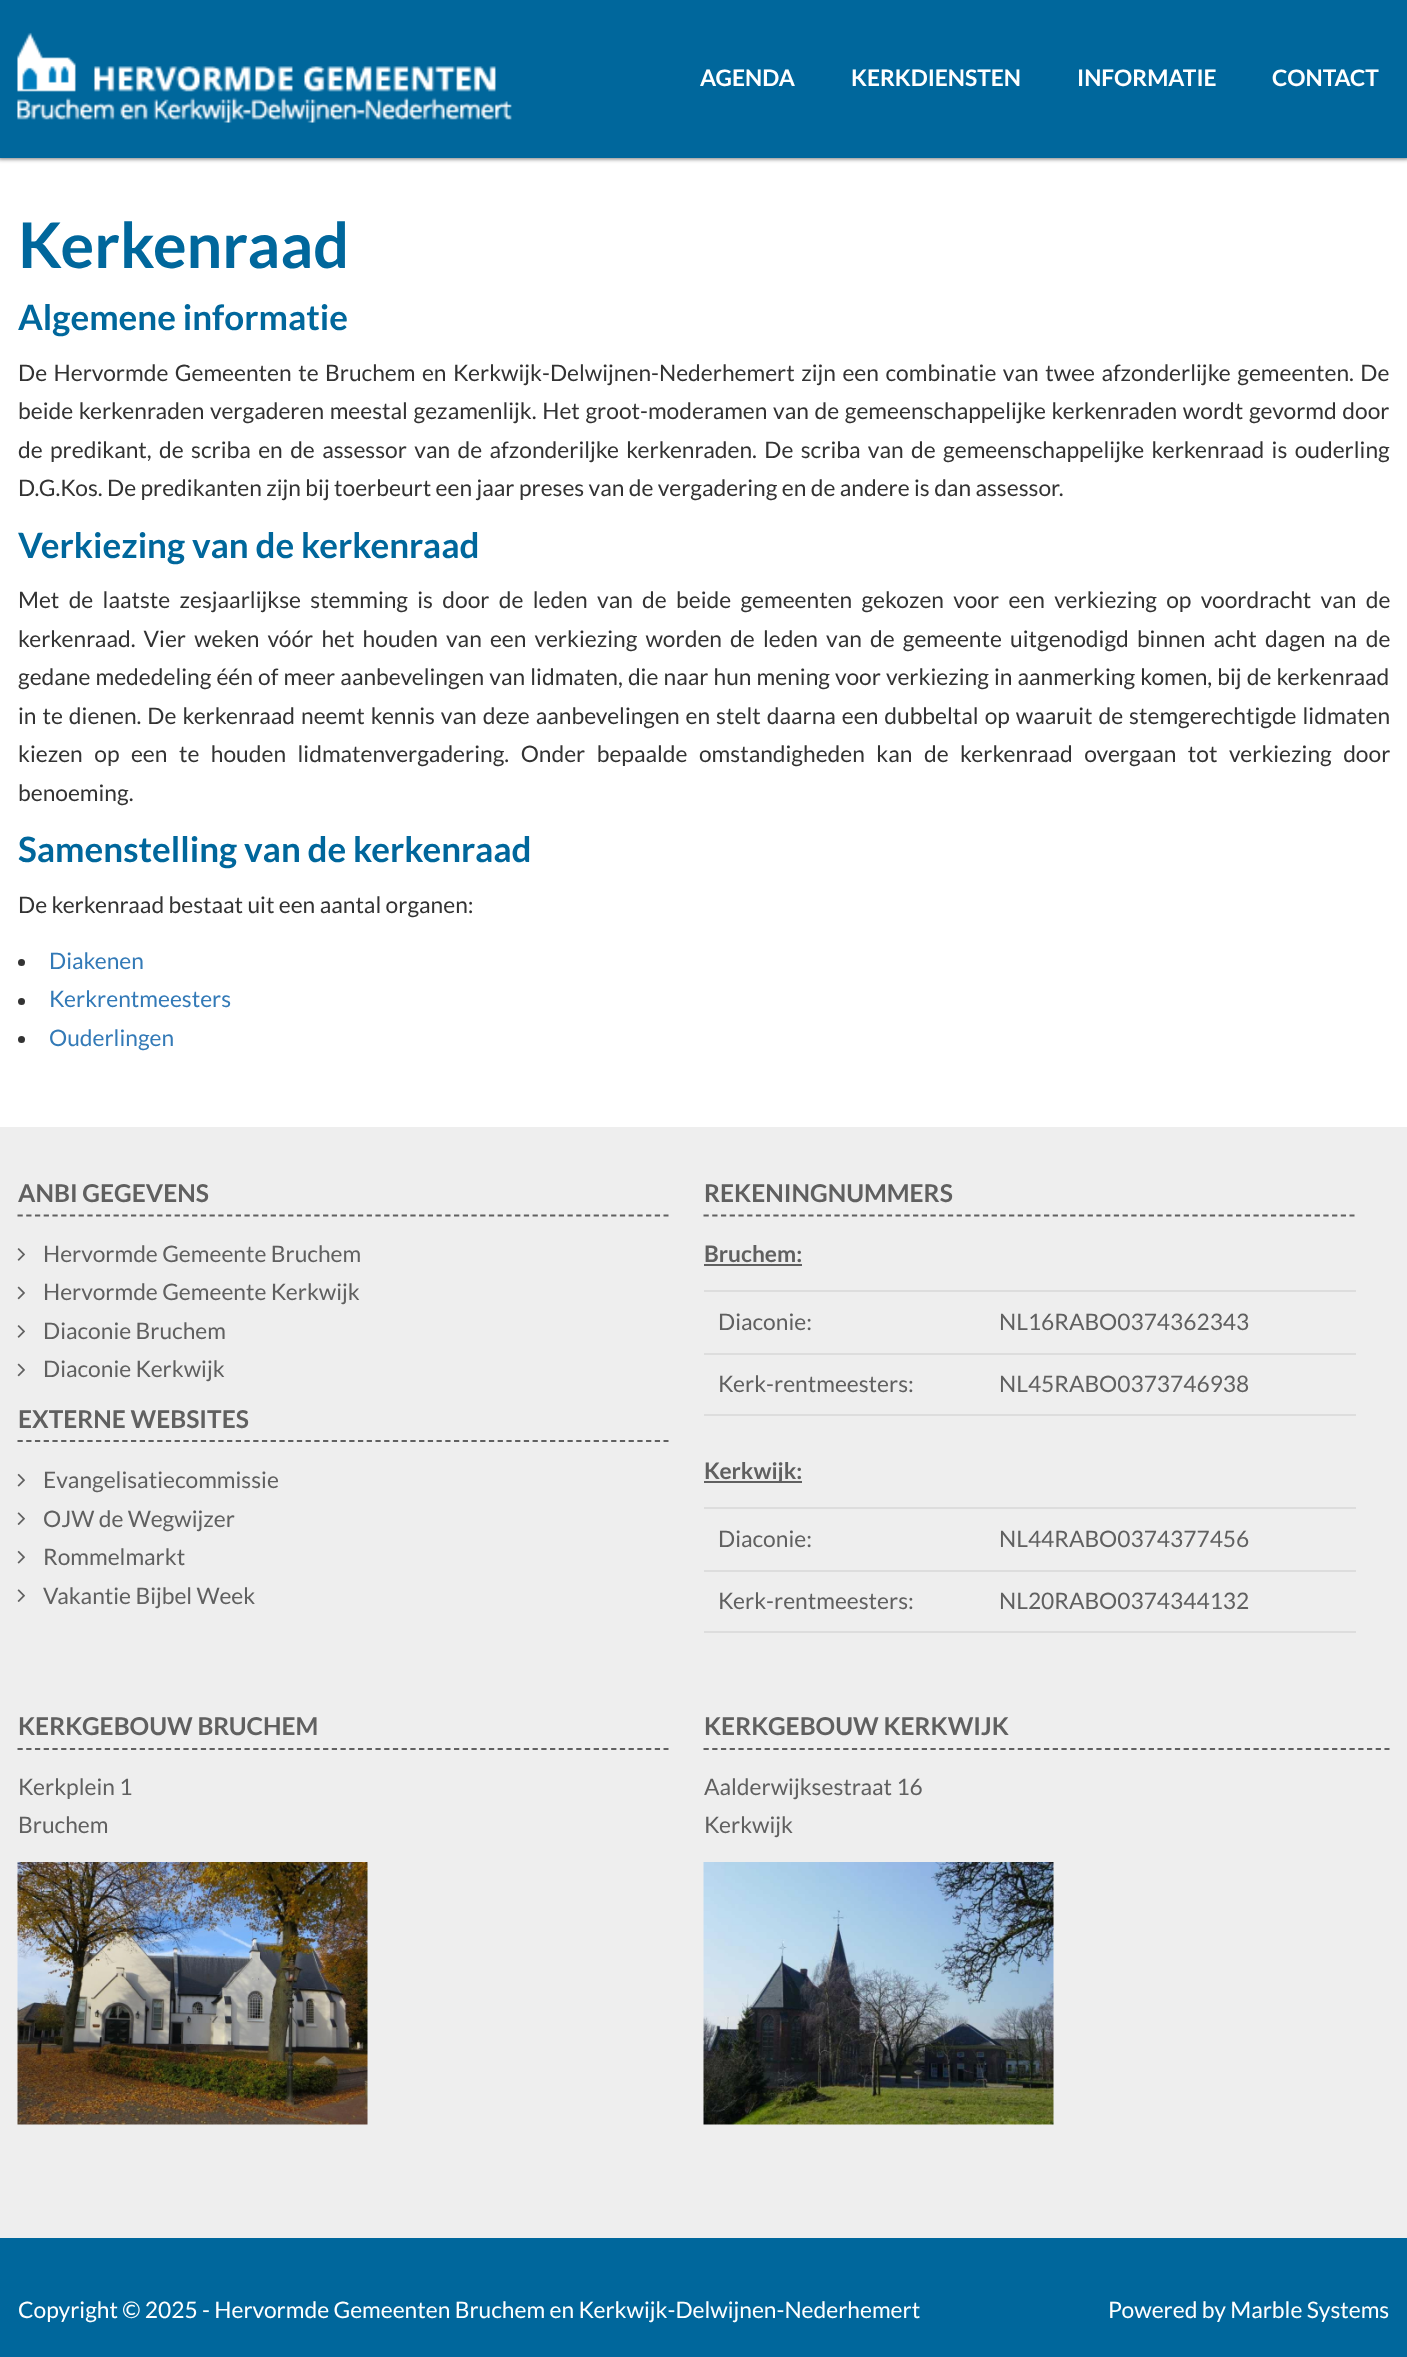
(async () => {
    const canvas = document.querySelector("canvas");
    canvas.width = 1407;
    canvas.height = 2357;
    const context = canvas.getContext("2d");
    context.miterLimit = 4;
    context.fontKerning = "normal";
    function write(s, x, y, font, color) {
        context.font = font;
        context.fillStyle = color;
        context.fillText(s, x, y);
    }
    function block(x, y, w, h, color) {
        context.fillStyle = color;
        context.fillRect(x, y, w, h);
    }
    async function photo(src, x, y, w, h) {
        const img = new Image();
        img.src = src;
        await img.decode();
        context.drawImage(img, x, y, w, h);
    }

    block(0, 0, 1407, 2357, "rgb(255, 255, 255)");
    context.fillStyle = "rgb(119, 119, 119)";
    context.filter = "blur(2px)";
    context.beginPath();
    context.rect(-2, -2, 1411, 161);
    context.fill();
    context.filter = "none";
    block(0, 0, 1407, 158, "rgb(0, 103, 156)");
    await photo("media/1.png", 17, 32, 495, 91);
    write("AGENDA", 700, 86, "bold 22.75px Lato", "rgb(255, 255, 255)");
    write("KERKDIENSTEN", 851, 86, "bold 22.75px Lato", "rgb(255, 255, 255)");
    write("INFORMATIE", 1077, 86, "bold 22.75px Lato", "rgb(255, 255, 255)");
    write("CONTACT", 1272, 86, "bold 22.75px Lato", "rgb(255, 255, 255)");
    write("Kerkenraad", 18, 268, "bold 63px Lato", "rgb(0, 103, 156)");
    write("Algemene informatie", 18, 330, "bold 35px Lato", "rgb(0, 103, 156)");
    context.wordSpacing = "2.1px";
    write("De Hervormde Gemeenten te Bruchem en Kerkwijk-Delwijnen-Nederhemert zijn een combinatie van twee afzonderlijke gemeenten. De", 18, 381, "22.75px Lato", "rgb(51, 51, 51)");
    context.wordSpacing = "1.25px";
    write("beide kerkenraden vergaderen meestal gezamenlijk. Het groot-moderamen van de gemeenschappelijke kerkenraden wordt gevormd door", 18, 419, "22.75px Lato", "rgb(51, 51, 51)");
    context.wordSpacing = "3px";
    write("de predikant, de scriba en de assessor van de afzonderiljke kerkenraden. De scriba van de gemeenschappelijke kerkenraad is ouderling", 18, 458, "22.75px Lato", "rgb(51, 51, 51)");
    context.wordSpacing = "0px";
    write("D.G.Kos. De predikanten zijn bij toerbeurt een jaar preses van de vergadering en de andere is dan assessor.", 18, 496, "22.75px Lato", "rgb(51, 51, 51)");
    write("Verkiezing van de kerkenraad", 18, 558, "bold 35px Lato", "rgb(0, 103, 156)");
    context.wordSpacing = "4.9px";
    write("Met de laatste zesjaarlijkse stemming is door de leden van de beide gemeenten gekozen voor een verkiezing op voordracht van de", 18, 608, "22.75px Lato", "rgb(51, 51, 51)");
    context.wordSpacing = "3.75px";
    write("kerkenraad. Vier weken vóór het houden van een verkiezing worden de leden van de gemeente uitgenodigd binnen acht dagen na de", 18, 647, "22.75px Lato", "rgb(51, 51, 51)");
    context.wordSpacing = "0.75px";
    write("gedane mededeling één of meer aanbevelingen van lidmaten, die naar hun mening voor verkiezing in aanmerking komen, bij de kerkenraad", 18, 685, "22.75px Lato", "rgb(51, 51, 51)");
    context.wordSpacing = "1.6px";
    write("in te dienen. De kerkenraad neemt kennis van deze aanbevelingen en stelt daarna een dubbeltal op waaruit de stemgerechtigde lidmaten", 18, 724, "22.75px Lato", "rgb(51, 51, 51)");
    context.wordSpacing = "7.1px";
    write("kiezen op een te houden lidmatenvergadering. Onder bepaalde omstandigheden kan de kerkenraad overgaan tot verkiezing door", 18, 762, "22.75px Lato", "rgb(51, 51, 51)");
    context.wordSpacing = "0px";
    write("benoeming.", 18, 801, "22.75px Lato", "rgb(51, 51, 51)");
    write("Samenstelling van de kerkenraad", 18, 862, "bold 35px Lato", "rgb(0, 103, 156)");
    write("De kerkenraad bestaat uit een aantal organen:", 18, 913, "22.75px Lato", "rgb(51, 51, 51)");
    context.beginPath();
    context.arc(21.5, 962.5, 3.5, 0, Math.PI * 2);
    context.fill();
    write("Diakenen", 49, 969, "22.75px Lato", "rgb(51, 122, 183)");
    context.fillStyle = "rgb(51, 51, 51)";
    context.beginPath();
    context.arc(21.5, 1001.5, 3.5, 0, Math.PI * 2);
    context.fill();
    write("Kerkrentmeesters", 49, 1007, "22.75px Lato", "rgb(51, 122, 183)");
    context.fillStyle = "rgb(51, 51, 51)";
    context.beginPath();
    context.arc(21.5, 1039.5, 3.5, 0, Math.PI * 2);
    context.fill();
    write("Ouderlingen", 49, 1046, "22.75px Lato", "rgb(51, 122, 183)");
    block(0, 1127, 1407, 1111, "rgb(238, 238, 238)");
    context.beginPath();
    context.moveTo(17.5, 1215.5);
    context.lineTo(668.5, 1215.5);
    context.strokeStyle = "rgb(96, 96, 96)";
    context.lineWidth = 1.8;
    context.setLineDash([5.25, 3.48]);
    context.stroke();
    write("ANBI GEGEVENS", 18, 1202, "bold 24.5px Lato", "rgb(96, 96, 96)");
    await photo("media/2.png", 17, 1248, 8, 13);
    write("Hervormde Gemeente Bruchem", 43, 1262, "22.75px Lato", "rgb(96, 96, 96)");
    await photo("media/3.png", 17, 1286, 8, 14);
    write("Hervormde Gemeente Kerkwijk", 43, 1300, "22.75px Lato", "rgb(96, 96, 96)");
    await photo("media/2.png", 17, 1325, 8, 13);
    write("Diaconie Bruchem", 43, 1339, "22.75px Lato", "rgb(96, 96, 96)");
    await photo("media/3.png", 17, 1363, 8, 14);
    write("Diaconie Kerkwijk", 43, 1377, "22.75px Lato", "rgb(96, 96, 96)");
    context.beginPath();
    context.moveTo(17.5, 1441);
    context.lineTo(668.5, 1441);
    context.stroke();
    write("EXTERNE WEBSITES", 18, 1428, "bold 24.5px Lato", "rgb(96, 96, 96)");
    await photo("media/4.png", 17, 1473, 8, 14);
    write("Evangelisatiecommissie", 43, 1488, "22.75px Lato", "rgb(96, 96, 96)");
    await photo("media/5.png", 17, 1512, 8, 13);
    write("OJW de Wegwijzer", 43, 1527, "22.75px Lato", "rgb(96, 96, 96)");
    await photo("media/4.png", 17, 1550, 8, 14);
    write("Rommelmarkt", 43, 1565, "22.75px Lato", "rgb(96, 96, 96)");
    await photo("media/5.png", 17, 1589, 8, 13);
    write("Vakantie Bijbel Week", 43, 1604, "22.75px Lato", "rgb(96, 96, 96)");
    context.beginPath();
    context.moveTo(703.5, 1215.5);
    context.lineTo(1354.5, 1215.5);
    context.stroke();
    write("REKENINGNUMMERS", 704, 1202, "bold 24.5px Lato", "rgb(96, 96, 96)");
    write("Bruchem:", 704, 1262, "bold 22.75px Lato", "rgb(96, 96, 96)");
    block(704, 1264, 98, 2, "rgb(96, 96, 96)");
    write("Diaconie:", 718, 1330, "22.75px Lato", "rgb(96, 96, 96)");
    block(704, 1290, 652, 2, "rgb(221, 221, 221)");
    write("NL16RABO0374362343", 999, 1330, "22.75px Lato", "rgb(96, 96, 96)");
    write("Kerk-rentmeesters:", 718, 1392, "22.75px Lato", "rgb(96, 96, 96)");
    block(704, 1353, 652, 2, "rgb(221, 221, 221)");
    block(704, 1414, 652, 2, "rgb(221, 221, 221)");
    write("NL45RABO0373746938", 999, 1392, "22.75px Lato", "rgb(96, 96, 96)");
    block(704, 1481, 98, 2, "rgb(96, 96, 96)");
    write("Kerkwijk:", 704, 1479, "bold 22.75px Lato", "rgb(96, 96, 96)");
    write("Diaconie:", 718, 1547, "22.75px Lato", "rgb(96, 96, 96)");
    block(704, 1507, 652, 2, "rgb(221, 221, 221)");
    write("NL44RABO0374377456", 999, 1547, "22.75px Lato", "rgb(96, 96, 96)");
    write("Kerk-rentmeesters:", 718, 1609, "22.75px Lato", "rgb(96, 96, 96)");
    block(704, 1570, 652, 2, "rgb(221, 221, 221)");
    block(704, 1631, 652, 2, "rgb(221, 221, 221)");
    write("NL20RABO0374344132", 999, 1609, "22.75px Lato", "rgb(96, 96, 96)");
    context.beginPath();
    context.moveTo(17.5, 1749);
    context.lineTo(668.5, 1749);
    context.stroke();
    write("KERKGEBOUW BRUCHEM", 18, 1735, "bold 24.5px Lato", "rgb(96, 96, 96)");
    write("Kerkplein 1", 18, 1795, "22.75px Lato", "rgb(96, 96, 96)");
    write("Bruchem", 18, 1833, "22.75px Lato", "rgb(96, 96, 96)");
    await photo("media/6.png", 17, 1862, 351, 263);
    context.beginPath();
    context.moveTo(703.5, 1749);
    context.lineTo(1389.5, 1749);
    context.stroke();
    write("KERKGEBOUW KERKWIJK", 704, 1735, "bold 24.5px Lato", "rgb(96, 96, 96)");
    write("Aalderwijksestraat 16", 704, 1795, "22.75px Lato", "rgb(96, 96, 96)");
    write("Kerkwijk", 704, 1833, "22.75px Lato", "rgb(96, 96, 96)");
    await photo("media/7.png", 703, 1862, 351, 263);
    block(0, 2238, 1407, 119, "rgb(0, 103, 156)");
    write("Copyright © 2025 - Hervormde Gemeenten Bruchem en Kerkwijk-Delwijnen-Nederhemert", 18, 2318, "22.75px Lato", "rgb(255, 255, 255)");
    write("Powered by Marble Systems", 1108, 2318, "22.75px Lato", "rgb(255, 255, 255)");
})();
